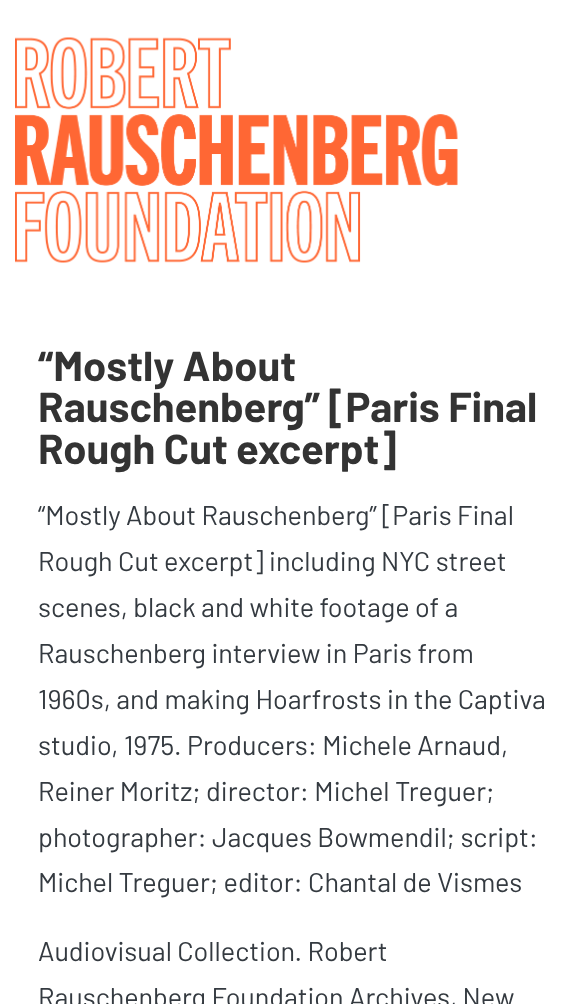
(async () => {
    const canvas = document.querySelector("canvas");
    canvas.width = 583;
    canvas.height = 1004;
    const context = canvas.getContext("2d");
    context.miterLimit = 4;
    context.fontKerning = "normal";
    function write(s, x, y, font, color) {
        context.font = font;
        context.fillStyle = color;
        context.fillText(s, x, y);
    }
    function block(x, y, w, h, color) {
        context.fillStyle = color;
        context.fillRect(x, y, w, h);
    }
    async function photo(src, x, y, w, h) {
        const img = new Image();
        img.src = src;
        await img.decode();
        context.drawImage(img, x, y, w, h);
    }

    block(0, 0, 583, 1004, "rgb(255, 255, 255)");
    await photo("media/1.png", 15, 37, 443, 226);
    write("“Mostly About", 38, 381, "bold 41.75px Barlow", "rgb(51, 51, 51)");
    write("Rauschenberg” [Paris Final", 38, 422, "bold 41.75px Barlow", "rgb(51, 51, 51)");
    write("Rough Cut excerpt]", 38, 464, "bold 41.75px Barlow", "rgb(51, 51, 51)");
    write("“Mostly About Rauschenberg” [Paris Final", 38, 525, "27px Barlow", "rgb(52, 58, 64)");
    write("Rough Cut excerpt] including NYC street", 38, 571, "27px Barlow", "rgb(52, 58, 64)");
    write("scenes, black and white footage of a", 38, 617, "27px Barlow", "rgb(52, 58, 64)");
    write("Rauschenberg interview in Paris from", 38, 663, "27px Barlow", "rgb(52, 58, 64)");
    write("1960s, and making Hoarfrosts in the Captiva", 38, 709, "27px Barlow", "rgb(52, 58, 64)");
    write("studio, 1975. Producers: Michele Arnaud,", 38, 755, "27px Barlow", "rgb(52, 58, 64)");
    write("Reiner Moritz; director: Michel Treguer;", 38, 801, "27px Barlow", "rgb(52, 58, 64)");
    write("photographer: Jacques Bowmendil; script:", 38, 847, "27px Barlow", "rgb(52, 58, 64)");
    write("Michel Treguer; editor: Chantal de Vismes", 38, 892, "27px Barlow", "rgb(52, 58, 64)");
    write("Audiovisual Collection. Robert", 38, 961, "27px Barlow", "rgb(52, 58, 64)");
    write("Rauschenberg Foundation Archives, New", 38, 1007, "27px Barlow", "rgb(52, 58, 64)");
})();
